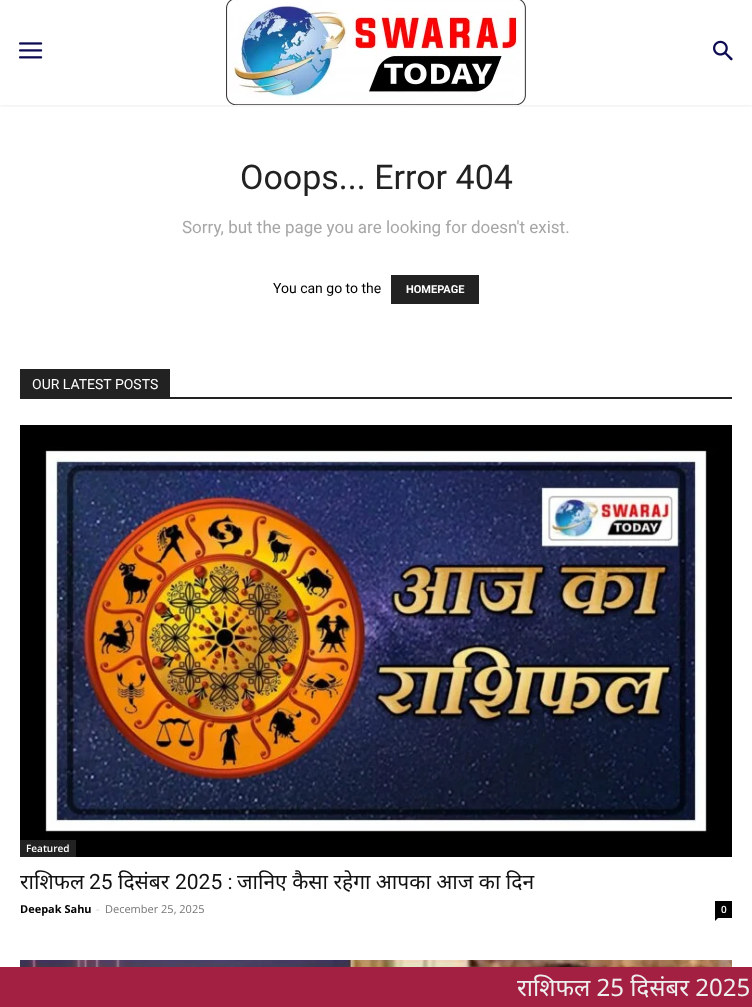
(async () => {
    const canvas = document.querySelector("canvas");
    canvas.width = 752;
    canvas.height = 1007;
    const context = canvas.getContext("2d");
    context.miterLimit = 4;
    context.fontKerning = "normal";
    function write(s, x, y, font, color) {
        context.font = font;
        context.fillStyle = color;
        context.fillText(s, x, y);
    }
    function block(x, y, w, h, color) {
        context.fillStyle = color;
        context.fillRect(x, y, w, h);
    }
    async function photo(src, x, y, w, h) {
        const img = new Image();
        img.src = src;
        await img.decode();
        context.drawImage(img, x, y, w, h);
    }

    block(0, 0, 752, 1007, "rgb(255, 255, 255)");
    await photo("media/1.png", 19, 42, 24, 17);
    await photo("media/2.png", 226, 0, 300, 105);
    await photo("media/3.png", 713, 40, 20, 21);
    context.save();
    context.beginPath();
    context.rect(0, 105, 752, 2);
    context.clip();
    context.fillStyle = "rgba(0, 0, 0, 0.05)";
    context.filter = "blur(1.5px)";
    context.beginPath();
    context.rect(0, 2, 752, 105);
    context.fill();
    context.filter = "none";
    context.restore();
    write("Ooops... Error 404", 240, 189, "34px Roboto", "rgb(34, 34, 34)");
    write("Sorry, but the page you are looking for doesn't exist.", 182, 233, "17px Roboto", "rgb(166, 166, 166)");
    write("You can go to the", 273, 293, "14px Roboto", "rgb(0, 0, 0)");
    block(391, 275, 88, 29, "rgb(34, 34, 34)");
    write("HOMEPAGE", 406, 293, "bold 11px Roboto", "rgb(255, 255, 255)");
    block(20, 397, 712, 2, "rgb(34, 34, 34)");
    block(20, 369, 150, 28, "rgb(34, 34, 34)");
    write("OUR LATEST POSTS", 32, 389, "14px Roboto", "rgb(255, 255, 255)");
    await photo("media/4.png", 20, 425, 712, 432);
    block(20, 840, 56, 17, "rgb(34, 34, 34)");
    write("Featured", 26, 852, "600 10px Open Sans", "rgb(255, 255, 255)");
    write("राशिफल", 20, 889, "21px Noto Sans", "rgb(17, 17, 17)");
    write("25", 89, 889, "21px Roboto", "rgb(17, 17, 17)");
    write("दिसंबर", 118, 889, "21px Noto Sans", "rgb(17, 17, 17)");
    write("2025 :", 175, 889, "21px Roboto", "rgb(17, 17, 17)");
    write("जानिए कैसा रहेगा आपका आज का दिन", 237, 889, "21px Noto Sans", "rgb(17, 17, 17)");
    write("Deepak Sahu", 20, 913, "bold 11px Open Sans", "rgb(0, 0, 0)");
    write("-", 96, 913, "11px Open Sans", "rgb(204, 204, 204)");
    write("December 25, 2025", 105, 913, "11px Open Sans", "rgb(118, 118, 118)");
    block(715, 901, 17, 17, "rgb(0, 0, 0)");
    write("0", 721, 913, "600 10px Open Sans", "rgb(255, 255, 255)");
    context.fillStyle = "rgb(0, 0, 0)";
    context.beginPath();
    context.moveTo(715, 918);
    context.lineTo(718, 918);
    context.lineTo(715, 921);
    context.closePath();
    context.fill();
    await photo("media/5.png", 20, 960, 712, 7);
    block(0, 967, 752, 40, "rgb(163, 32, 67)");
    write("राशिफल 25 दिसंबर 2025", 517, 996, "24px Noto Sans", "rgb(238, 238, 238)");
})();
